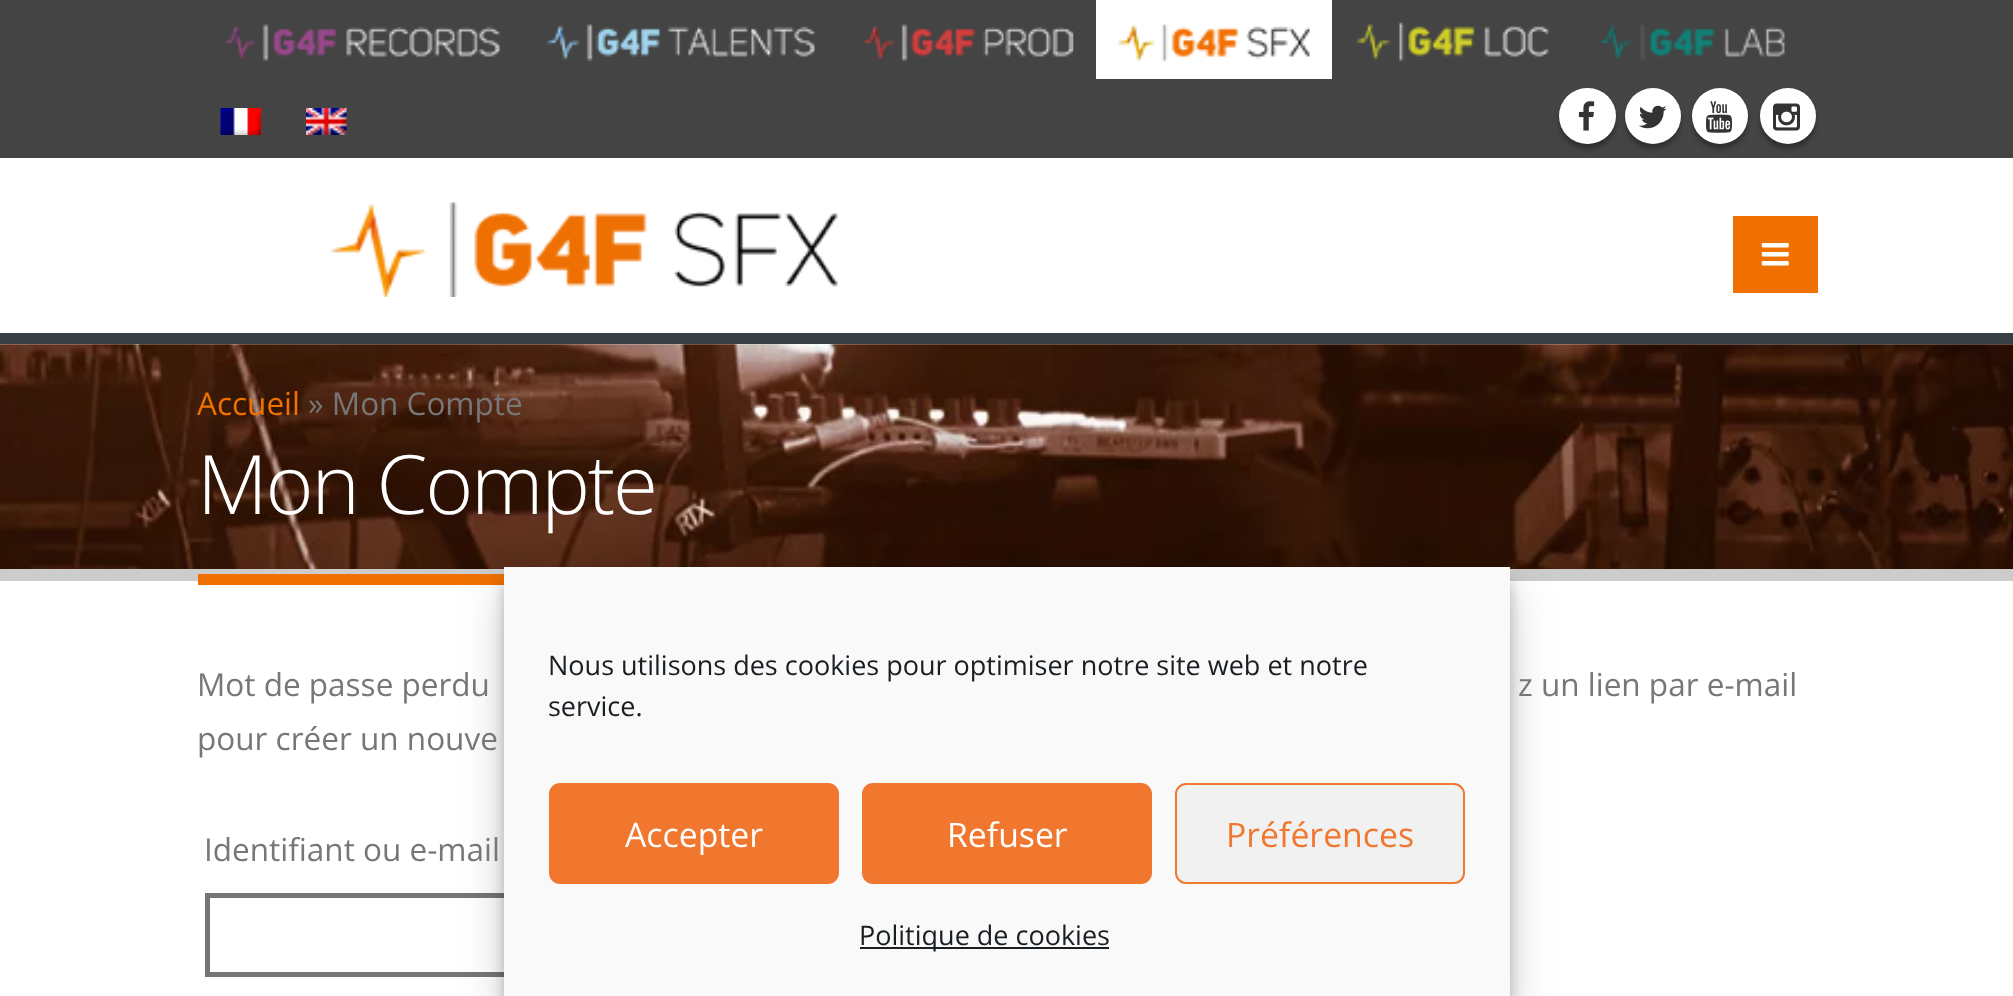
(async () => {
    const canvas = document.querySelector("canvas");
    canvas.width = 2013;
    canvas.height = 996;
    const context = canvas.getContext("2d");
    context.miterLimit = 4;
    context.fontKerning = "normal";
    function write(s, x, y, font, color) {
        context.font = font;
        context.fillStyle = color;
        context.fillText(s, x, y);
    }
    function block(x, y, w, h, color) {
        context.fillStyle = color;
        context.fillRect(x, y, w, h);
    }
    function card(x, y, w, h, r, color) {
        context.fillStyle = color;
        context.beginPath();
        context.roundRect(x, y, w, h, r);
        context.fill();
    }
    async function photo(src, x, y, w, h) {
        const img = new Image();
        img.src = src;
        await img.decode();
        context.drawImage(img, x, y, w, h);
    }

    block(0, 0, 2013, 996, "rgb(255, 255, 255)");
    block(0, 0, 2013, 158, "rgb(68, 68, 68)");
    await photo("media/1.png", 222, 24, 278, 38);
    await photo("media/2.png", 545, 24, 270, 38);
    await photo("media/3.png", 861, 24, 213, 38);
    block(1096, 0, 236, 79, "rgb(255, 255, 255)");
    await photo("media/4.png", 1118, 24, 192, 38);
    await photo("media/5.png", 1355, 22, 194, 40);
    await photo("media/6.png", 1597, 24, 188, 37);
    await photo("media/7.png", 220, 108, 41, 27);
    await photo("media/8.png", 306, 108, 41, 27);
    context.fillStyle = "rgba(0, 0, 0, 0.3)";
    context.filter = "blur(2px)";
    context.beginPath();
    context.roundRect(1559, 92, 57, 57, 28.5);
    context.fill();
    context.filter = "none";
    card(1559, 88, 57, 56, 28, "rgb(255, 255, 255)");
    await photo("media/9.png", 1578, 101, 17, 30);
    context.fillStyle = "rgba(0, 0, 0, 0.3)";
    context.filter = "blur(2px)";
    context.beginPath();
    context.roundRect(1625, 92, 56, 57, 28);
    context.fill();
    context.filter = "none";
    context.fillStyle = "rgb(255, 255, 255)";
    context.beginPath();
    context.arc(1653, 116, 28, 0, Math.PI * 2);
    context.fill();
    await photo("media/10.png", 1639, 105, 28, 24);
    context.fillStyle = "rgba(0, 0, 0, 0.3)";
    context.filter = "blur(2px)";
    context.beginPath();
    context.roundRect(1692, 92, 56, 57, 28);
    context.fill();
    context.filter = "none";
    context.fillStyle = "rgb(255, 255, 255)";
    context.beginPath();
    context.arc(1720, 116, 28, 0, Math.PI * 2);
    context.fill();
    await photo("media/11.png", 1706, 101, 26, 32);
    context.fillStyle = "rgba(0, 0, 0, 0.3)";
    context.filter = "blur(2px)";
    context.beginPath();
    context.roundRect(1760, 92, 56, 57, 28);
    context.fill();
    context.filter = "none";
    context.fillStyle = "rgb(255, 255, 255)";
    context.beginPath();
    context.arc(1788, 116, 28, 0, Math.PI * 2);
    context.fill();
    await photo("media/12.png", 1773, 103, 27, 28);
    await photo("media/13.png", 330, 202, 508, 95);
    block(1733, 216, 85, 77, "rgb(240, 113, 0)");
    await photo("media/14.png", 1761, 243, 28, 23);
    await photo("media/15.png", 0, 344, 2013, 225);
    block(0, 333, 2013, 11, "rgb(56, 64, 69)");
    block(0, 569, 2013, 12, "rgb(204, 204, 204)");
    write("Accueil", 197, 415, "31.5px Open Sans", "rgb(240, 113, 0)");
    write("» Mon Compte", 308, 415, "31.5px Open Sans", "rgb(119, 119, 119)");
    block(198, 574, 306, 11, "rgb(240, 113, 0)");
    context.letterSpacing = "-2.25px";
    write("Mon Compte", 197, 514, "300 82px Open Sans", "rgb(255, 255, 255)");
    context.strokeStyle = "rgb(118, 118, 118)";
    context.lineWidth = 5;
    context.strokeRect(207.5, 895.5, 742, 79);
    context.fillStyle = "rgba(0, 0, 0, 0.23)";
    context.filter = "blur(7px)";
    context.beginPath();
    context.rect(504, 581, 1006, 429);
    context.fill();
    context.filter = "none";
    context.fillStyle = "rgba(0, 0, 0, 0.19)";
    context.filter = "blur(22.5px)";
    context.beginPath();
    context.rect(504, 590, 1006, 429);
    context.fill();
    context.filter = "none";
    block(504, 567, 1006, 429, "rgb(249, 249, 249)");
    context.letterSpacing = "0px";
    write("Nous utilisons des cookies pour optimiser notre site web et notre", 548, 675, "27px Open Sans", "rgb(25, 30, 35)");
    write("service.", 548, 716, "27px Open Sans", "rgb(25, 30, 35)");
    context.fillStyle = "rgb(241, 119, 47)";
    context.beginPath();
    context.roundRect(550, 784, 288, 99, 10);
    context.fill();
    context.strokeStyle = "rgb(241, 119, 47)";
    context.lineWidth = 2;
    context.stroke();
    write("Accepter", 625, 847, "33.75px Open Sans", "rgb(255, 255, 255)");
    context.fillStyle = "rgb(241, 119, 47)";
    context.beginPath();
    context.roundRect(863, 784, 288, 99, 10);
    context.fill();
    context.stroke();
    write("Refuser", 947, 847, "33.75px Open Sans", "rgb(255, 255, 255)");
    context.fillStyle = "rgb(241, 241, 241)";
    context.beginPath();
    context.roundRect(1176, 784, 288, 99, 10);
    context.fill();
    context.stroke();
    write("Préférences", 1226, 847, "33.75px Open Sans", "rgb(241, 119, 47)");
    block(860, 947, 249, 2, "rgb(25, 30, 35)");
    write("Politique de cookies", 859, 945, "27px Open Sans", "rgb(25, 30, 35)");
    write("Mot de passe perdu", 197, 696, "31.5px Open Sans", "rgb(119, 119, 119)");
    write("z un lien par e-mail", 1518, 696, "31.5px Open Sans", "rgb(119, 119, 119)");
    write("pour créer un nouve", 197, 750, "31.5px Open Sans", "rgb(119, 119, 119)");
    write("Identifiant ou e-mail", 204, 861, "31.5px Open Sans", "rgb(119, 119, 119)");
})();
